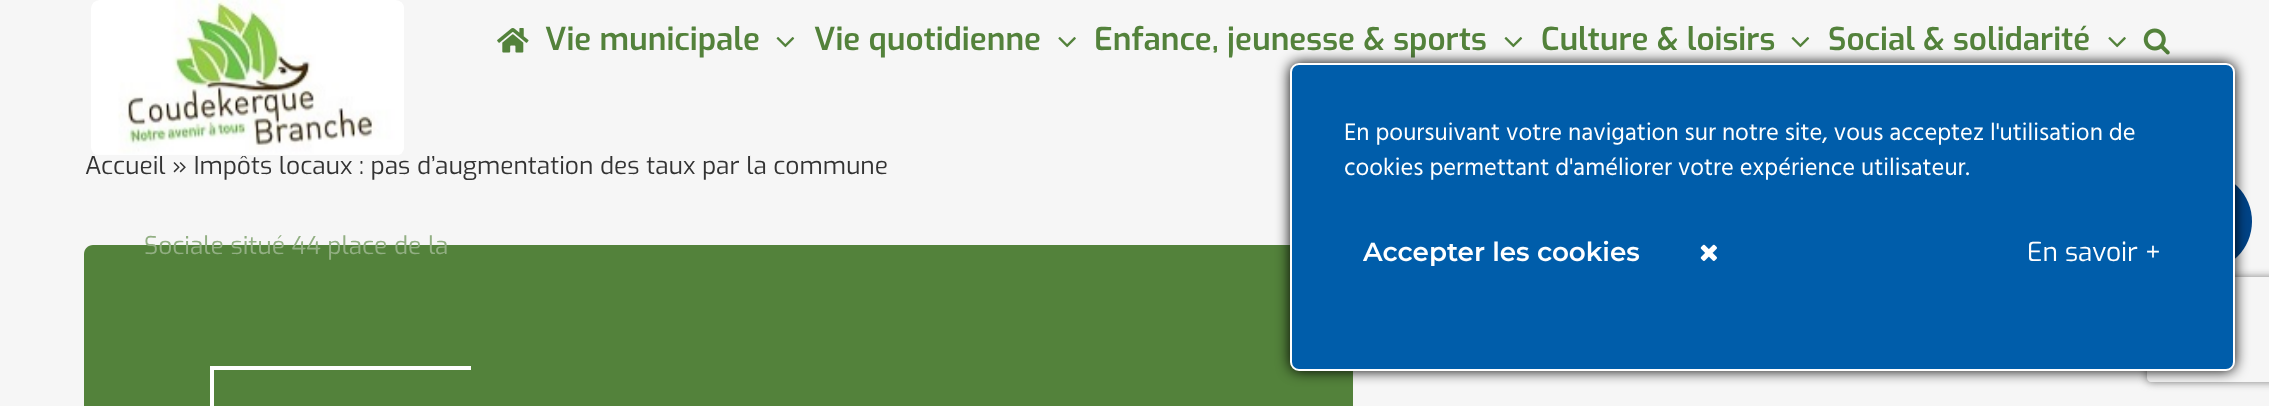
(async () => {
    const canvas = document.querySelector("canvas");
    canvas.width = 2269;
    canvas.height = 406;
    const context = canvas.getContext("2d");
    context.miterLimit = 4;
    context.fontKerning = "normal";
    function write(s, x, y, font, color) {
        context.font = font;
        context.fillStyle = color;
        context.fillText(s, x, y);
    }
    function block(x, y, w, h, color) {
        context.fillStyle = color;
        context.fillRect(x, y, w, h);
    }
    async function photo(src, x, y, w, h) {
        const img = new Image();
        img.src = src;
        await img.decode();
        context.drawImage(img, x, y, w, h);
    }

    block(0, 0, 2269, 406, "rgb(246, 246, 246)");
    write("Accueil » Impôts locaux : pas d’augmentation des taux par la commune", 85, 174, "24.5px Exo", "rgb(51, 51, 51)");
    block(154, 155, 596, 1, "rgb(246, 246, 246)");
    await photo("media/1.png", 91, 0, 313, 155);
    write("Social & solidarité", 1828, 50, "600 31.5px Exo", "rgb(83, 130, 59)");
    await photo("media/2.png", 2108, 37, 18, 11);
    context.beginPath();
    context.moveTo(93, 245);
    context.lineTo(1353, 245);
    context.lineTo(1353, 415);
    context.lineTo(93, 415);
    context.bezierCurveTo(88, 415, 84, 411, 84, 406);
    context.lineTo(84, 254);
    context.bezierCurveTo(84, 249, 88, 245, 93, 245);
    context.closePath();
    context.fill();
    write("Sociale situé 44 place de la", 144, 254, "24.5px Exo", "rgb(146, 175, 131)");
    await photo("media/3.png", 497, 28, 32, 25);
    write("Vie municipale", 545, 50, "600 31.5px Exo", "rgb(83, 130, 59)");
    await photo("media/4.png", 776, 37, 19, 11);
    write("Vie quotidienne", 814, 50, "600 31.5px Exo", "rgb(83, 130, 59)");
    await photo("media/2.png", 1058, 37, 18, 11);
    write("Enfance, jeunesse & sports", 1094, 50, "600 31.5px Exo", "rgb(83, 130, 59)");
    await photo("media/4.png", 1504, 37, 19, 11);
    write("Culture & loisirs", 1541, 50, "600 31.5px Exo", "rgb(83, 130, 59)");
    await photo("media/4.png", 1791, 37, 19, 11);
    await photo("media/5.png", 2143, 28, 27, 27);
    block(210, 366, 261, 4, "rgb(255, 255, 255)");
    block(210, 366, 4, 40, "rgb(255, 255, 255)");
    context.save();
    context.beginPath();
    context.moveTo(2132, 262);
    context.lineTo(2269, 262);
    context.lineTo(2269, 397);
    context.lineTo(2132, 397);
    context.closePath();
    context.moveTo(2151, 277);
    context.lineTo(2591, 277);
    context.bezierCurveTo(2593, 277, 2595, 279, 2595, 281);
    context.lineTo(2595, 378);
    context.bezierCurveTo(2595, 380, 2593, 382, 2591, 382);
    context.lineTo(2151, 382);
    context.bezierCurveTo(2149, 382, 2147, 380, 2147, 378);
    context.lineTo(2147, 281);
    context.bezierCurveTo(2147, 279, 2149, 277, 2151, 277);
    context.closePath();
    context.clip("evenodd");
    context.fillStyle = "rgb(128, 128, 128)";
    context.filter = "blur(4.5px)";
    context.beginPath();
    context.roundRect(2147, 277, 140, 105, 4);
    context.fill();
    context.filter = "none";
    context.restore();
    context.fillStyle = "rgb(1, 68, 136)";
    context.beginPath();
    context.arc(2202.5, 221.5, 49.5, 0, Math.PI * 2);
    context.fill();
    context.fillStyle = "rgb(0, 0, 0)";
    context.filter = "blur(7px)";
    context.beginPath();
    context.roundRect(1290, 63, 945, 308, 9);
    context.fill();
    context.filter = "none";
    context.fillStyle = "rgb(0, 93, 170)";
    context.beginPath();
    context.roundRect(1291, 64, 943, 306, 8);
    context.fill();
    context.strokeStyle = "rgb(255, 255, 255)";
    context.lineWidth = 2;
    context.stroke();
    write("En poursuivant votre navigation sur notre site, vous acceptez l'utilisation de", 1344, 140, "24.5px Hind", "rgb(255, 255, 255)");
    write("cookies permettant d'améliorer votre expérience utilisateur.", 1344, 175, "24.5px Hind", "rgb(255, 255, 255)");
    write("Accepter les cookies", 1363, 261, "600 26.25px Montserrat", "rgb(255, 255, 255)");
    await photo("media/6.png", 1700, 244, 17, 17);
    write("En savoir +", 2027, 261, "26.25px Exo", "rgb(255, 255, 255)");
})();
